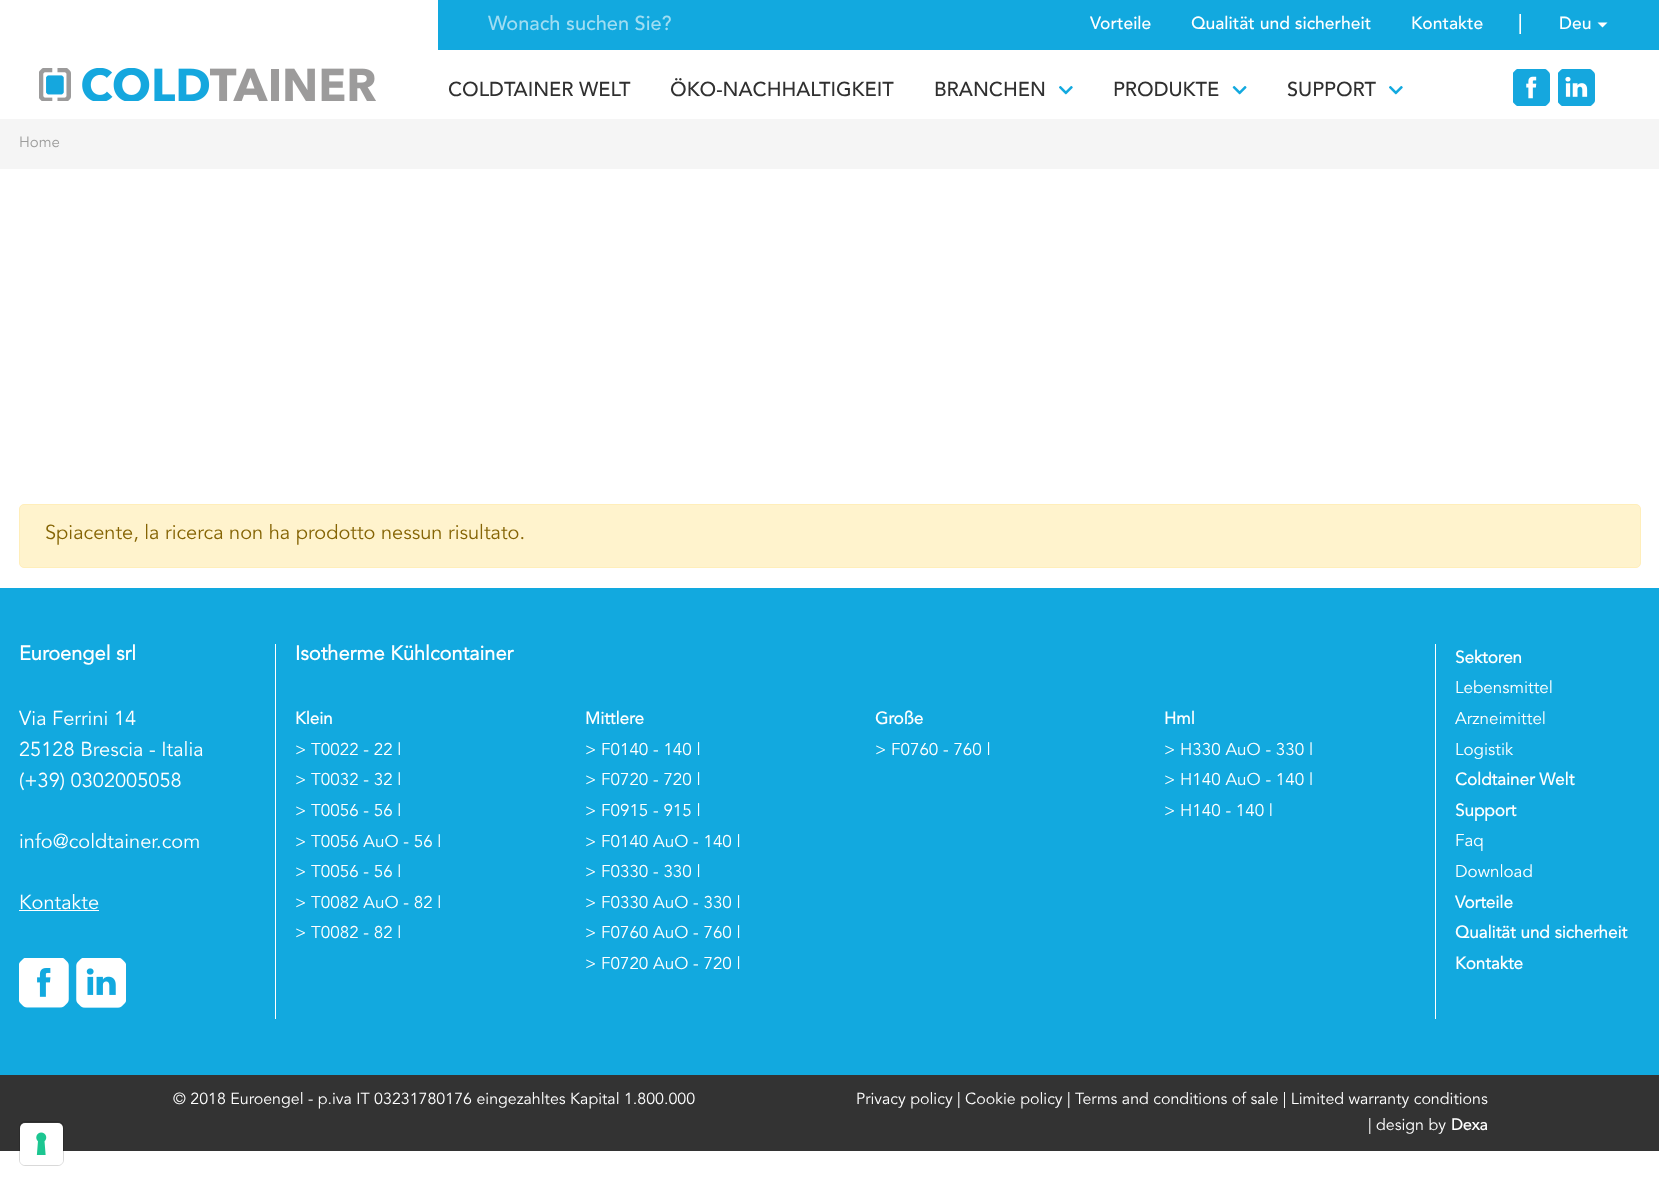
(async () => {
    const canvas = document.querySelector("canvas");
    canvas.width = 1659;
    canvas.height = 1184;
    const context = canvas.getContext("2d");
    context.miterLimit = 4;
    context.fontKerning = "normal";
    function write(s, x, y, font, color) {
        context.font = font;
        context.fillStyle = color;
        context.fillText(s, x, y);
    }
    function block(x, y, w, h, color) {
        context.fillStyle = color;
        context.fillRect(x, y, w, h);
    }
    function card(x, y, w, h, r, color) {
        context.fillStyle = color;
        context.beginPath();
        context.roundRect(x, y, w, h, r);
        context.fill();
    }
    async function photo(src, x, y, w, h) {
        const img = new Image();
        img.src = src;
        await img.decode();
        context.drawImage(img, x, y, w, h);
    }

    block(0, 0, 1659, 1184, "rgb(255, 255, 255)");
    block(438, 0, 1221, 50, "rgb(18, 169, 223)");
    write("Wonach suchen Sie?", 488, 30, "20px Avenir", "rgb(160, 221, 242)");
    write("Vorteile", 1090, 29, "17.5px Avenir", "rgb(255, 255, 255)");
    write("Qualität und sicherheit", 1191, 29, "17.5px Avenir", "rgb(255, 255, 255)");
    write("Kontakte", 1411, 29, "17.5px Avenir", "rgb(255, 255, 255)");
    write("|", 1518, 29, "20px Avenir", "rgb(255, 255, 255)");
    write("Deu", 1559, 29, "17.5px Avenir", "rgb(255, 255, 255)");
    context.beginPath();
    context.moveTo(1597.5, 22.5);
    context.lineTo(1607.5, 22.5);
    context.lineTo(1602.5, 27.5);
    context.closePath();
    context.fill();
    await photo("media/1.png", 39, 68, 337, 33);
    write("COLDTAINER WELT", 448, 96, "20px Avenir", "rgb(48, 48, 48)");
    write("ÖKO-NACHHALTIGKEIT", 670, 96, "20px Avenir", "rgb(48, 48, 48)");
    write("BRANCHEN", 934, 96, "20px Avenir", "rgb(48, 48, 48)");
    await photo("media/2.png", 1059, 86, 14, 9);
    write("PRODUKTE", 1113, 96, "20px Avenir", "rgb(48, 48, 48)");
    await photo("media/3.png", 1232, 86, 15, 9);
    write("SUPPORT", 1287, 96, "20px Avenir", "rgb(48, 48, 48)");
    await photo("media/2.png", 1389, 86, 14, 9);
    await photo("media/4.png", 1513, 69, 37, 37);
    await photo("media/5.png", 1558, 69, 37, 37);
    block(0, 119, 1659, 50, "rgb(245, 245, 245)");
    write("Home", 19, 147, "15px 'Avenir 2'", "rgb(157, 157, 156)");
    context.fillStyle = "rgb(255, 243, 205)";
    context.beginPath();
    context.roundRect(19.5, 504.5, 1621, 63, 4.5);
    context.fill();
    context.strokeStyle = "rgb(255, 238, 186)";
    context.stroke();
    write("Spiacente, la ricerca non ha prodotto nessun risultato.", 45, 539, "20px 'Avenir 2'", "rgb(133, 100, 4)");
    block(0, 588, 1659, 487, "rgb(18, 169, 223)");
    block(275, 644, 1, 375, "rgb(255, 255, 255)");
    write("Euroengel srl", 19, 660, "bold 20px Avenir", "rgb(255, 255, 255)");
    write("Via Ferrini 14", 19, 725, "20px 'Avenir 2'", "rgb(255, 255, 255)");
    write("25128 Brescia - Italia", 19, 756, "20px 'Avenir 2'", "rgb(255, 255, 255)");
    write("(+39) 0302005058", 19, 787, "20px 'Avenir 2'", "rgb(255, 255, 255)");
    write("info@coldtainer.com", 19, 848, "20px 'Avenir 2'", "rgb(255, 255, 255)");
    write("Kontakte", 19, 909, "20px 'Avenir 2'", "rgb(255, 255, 255)");
    block(19, 910, 80, 1, "rgb(255, 255, 255)");
    await photo("media/6.png", 19, 958, 50, 50);
    await photo("media/7.png", 76, 958, 50, 50);
    write("Isotherme Kühlcontainer", 295, 660, "bold 20px Avenir", "rgb(255, 255, 255)");
    write("Klein", 295, 724, "bold 17px Avenir", "rgb(255, 255, 255)");
    write("> T0022 - 22 l", 295, 755, "17px 'Avenir 2'", "rgb(255, 255, 255)");
    write("> T0032 - 32 l", 295, 785, "17px 'Avenir 2'", "rgb(255, 255, 255)");
    write("> T0056 - 56 l", 295, 816, "17px 'Avenir 2'", "rgb(255, 255, 255)");
    write("> T0056 AuO - 56 l", 295, 847, "17px 'Avenir 2'", "rgb(255, 255, 255)");
    write("> T0056 - 56 l", 295, 877, "17px 'Avenir 2'", "rgb(255, 255, 255)");
    write("> T0082 AuO - 82 l", 295, 908, "17px 'Avenir 2'", "rgb(255, 255, 255)");
    write("> T0082 - 82 l", 295, 938, "17px 'Avenir 2'", "rgb(255, 255, 255)");
    write("Mittlere", 585, 724, "bold 17px Avenir", "rgb(255, 255, 255)");
    write("> F0140 - 140 l", 585, 755, "17px 'Avenir 2'", "rgb(255, 255, 255)");
    write("> F0720 - 720 l", 585, 785, "17px 'Avenir 2'", "rgb(255, 255, 255)");
    write("> F0915 - 915 l", 585, 816, "17px 'Avenir 2'", "rgb(255, 255, 255)");
    write("> F0140 AuO - 140 l", 585, 847, "17px 'Avenir 2'", "rgb(255, 255, 255)");
    write("> F0330 - 330 l", 585, 877, "17px 'Avenir 2'", "rgb(255, 255, 255)");
    write("> F0330 AuO - 330 l", 585, 908, "17px 'Avenir 2'", "rgb(255, 255, 255)");
    write("> F0760 AuO - 760 l", 585, 938, "17px 'Avenir 2'", "rgb(255, 255, 255)");
    write("> F0720 AuO - 720 l", 585, 969, "17px 'Avenir 2'", "rgb(255, 255, 255)");
    write("Große", 875, 724, "bold 17px Avenir", "rgb(255, 255, 255)");
    write("> F0760 - 760 l", 875, 755, "17px 'Avenir 2'", "rgb(255, 255, 255)");
    write("Hml", 1164, 724, "bold 17px Avenir", "rgb(255, 255, 255)");
    write("> H330 AuO - 330 l", 1164, 755, "17px 'Avenir 2'", "rgb(255, 255, 255)");
    write("> H140 AuO - 140 l", 1164, 785, "17px 'Avenir 2'", "rgb(255, 255, 255)");
    write("> H140 - 140 l", 1164, 816, "17px 'Avenir 2'", "rgb(255, 255, 255)");
    block(1435, 644, 1, 375, "rgb(255, 255, 255)");
    write("Sektoren", 1455, 663, "bold 17px Avenir", "rgb(255, 255, 255)");
    write("Lebensmittel", 1455, 693, "17px 'Avenir 2'", "rgb(255, 255, 255)");
    write("Arzneimittel", 1455, 724, "17px 'Avenir 2'", "rgb(255, 255, 255)");
    write("Logistik", 1455, 755, "17px 'Avenir 2'", "rgb(255, 255, 255)");
    write("Coldtainer Welt", 1455, 785, "bold 17px Avenir", "rgb(255, 255, 255)");
    write("Support", 1455, 816, "bold 17px Avenir", "rgb(255, 255, 255)");
    write("Faq", 1455, 846, "17px 'Avenir 2'", "rgb(255, 255, 255)");
    write("Download", 1455, 877, "17px 'Avenir 2'", "rgb(255, 255, 255)");
    write("Vorteile", 1455, 908, "bold 17px Avenir", "rgb(255, 255, 255)");
    write("Qualität und sicherheit", 1455, 938, "bold 17px Avenir", "rgb(255, 255, 255)");
    write("Kontakte", 1455, 969, "bold 17px Avenir", "rgb(255, 255, 255)");
    block(0, 1075, 1659, 76, "rgb(51, 51, 51)");
    write("© 2018 Euroengel - p.iva IT 03231780176 eingezahltes Kapital 1.800.000", 173, 1104, "16px 'Avenir 2'", "rgb(255, 255, 255)");
    write("Privacy policy | Cookie policy | Terms and conditions of sale | Limited warranty conditions", 856, 1104, "16px 'Avenir 2'", "rgb(255, 255, 255)");
    write("| design by", 1368, 1130, "16px 'Avenir 2'", "rgb(255, 255, 255)");
    write("Dexa", 1451, 1130, "bold 16px Avenir", "rgb(255, 255, 255)");
    context.beginPath();
    context.roundRect(19.5, 1121.5, 44, 44, 5.5);
    context.strokeStyle = "rgba(0, 0, 0, 0.15)";
    context.stroke();
    card(20, 1123, 43, 42, 5, "rgb(255, 255, 255)");
    await photo("media/8.png", 36, 1132, 11, 23);
})();
